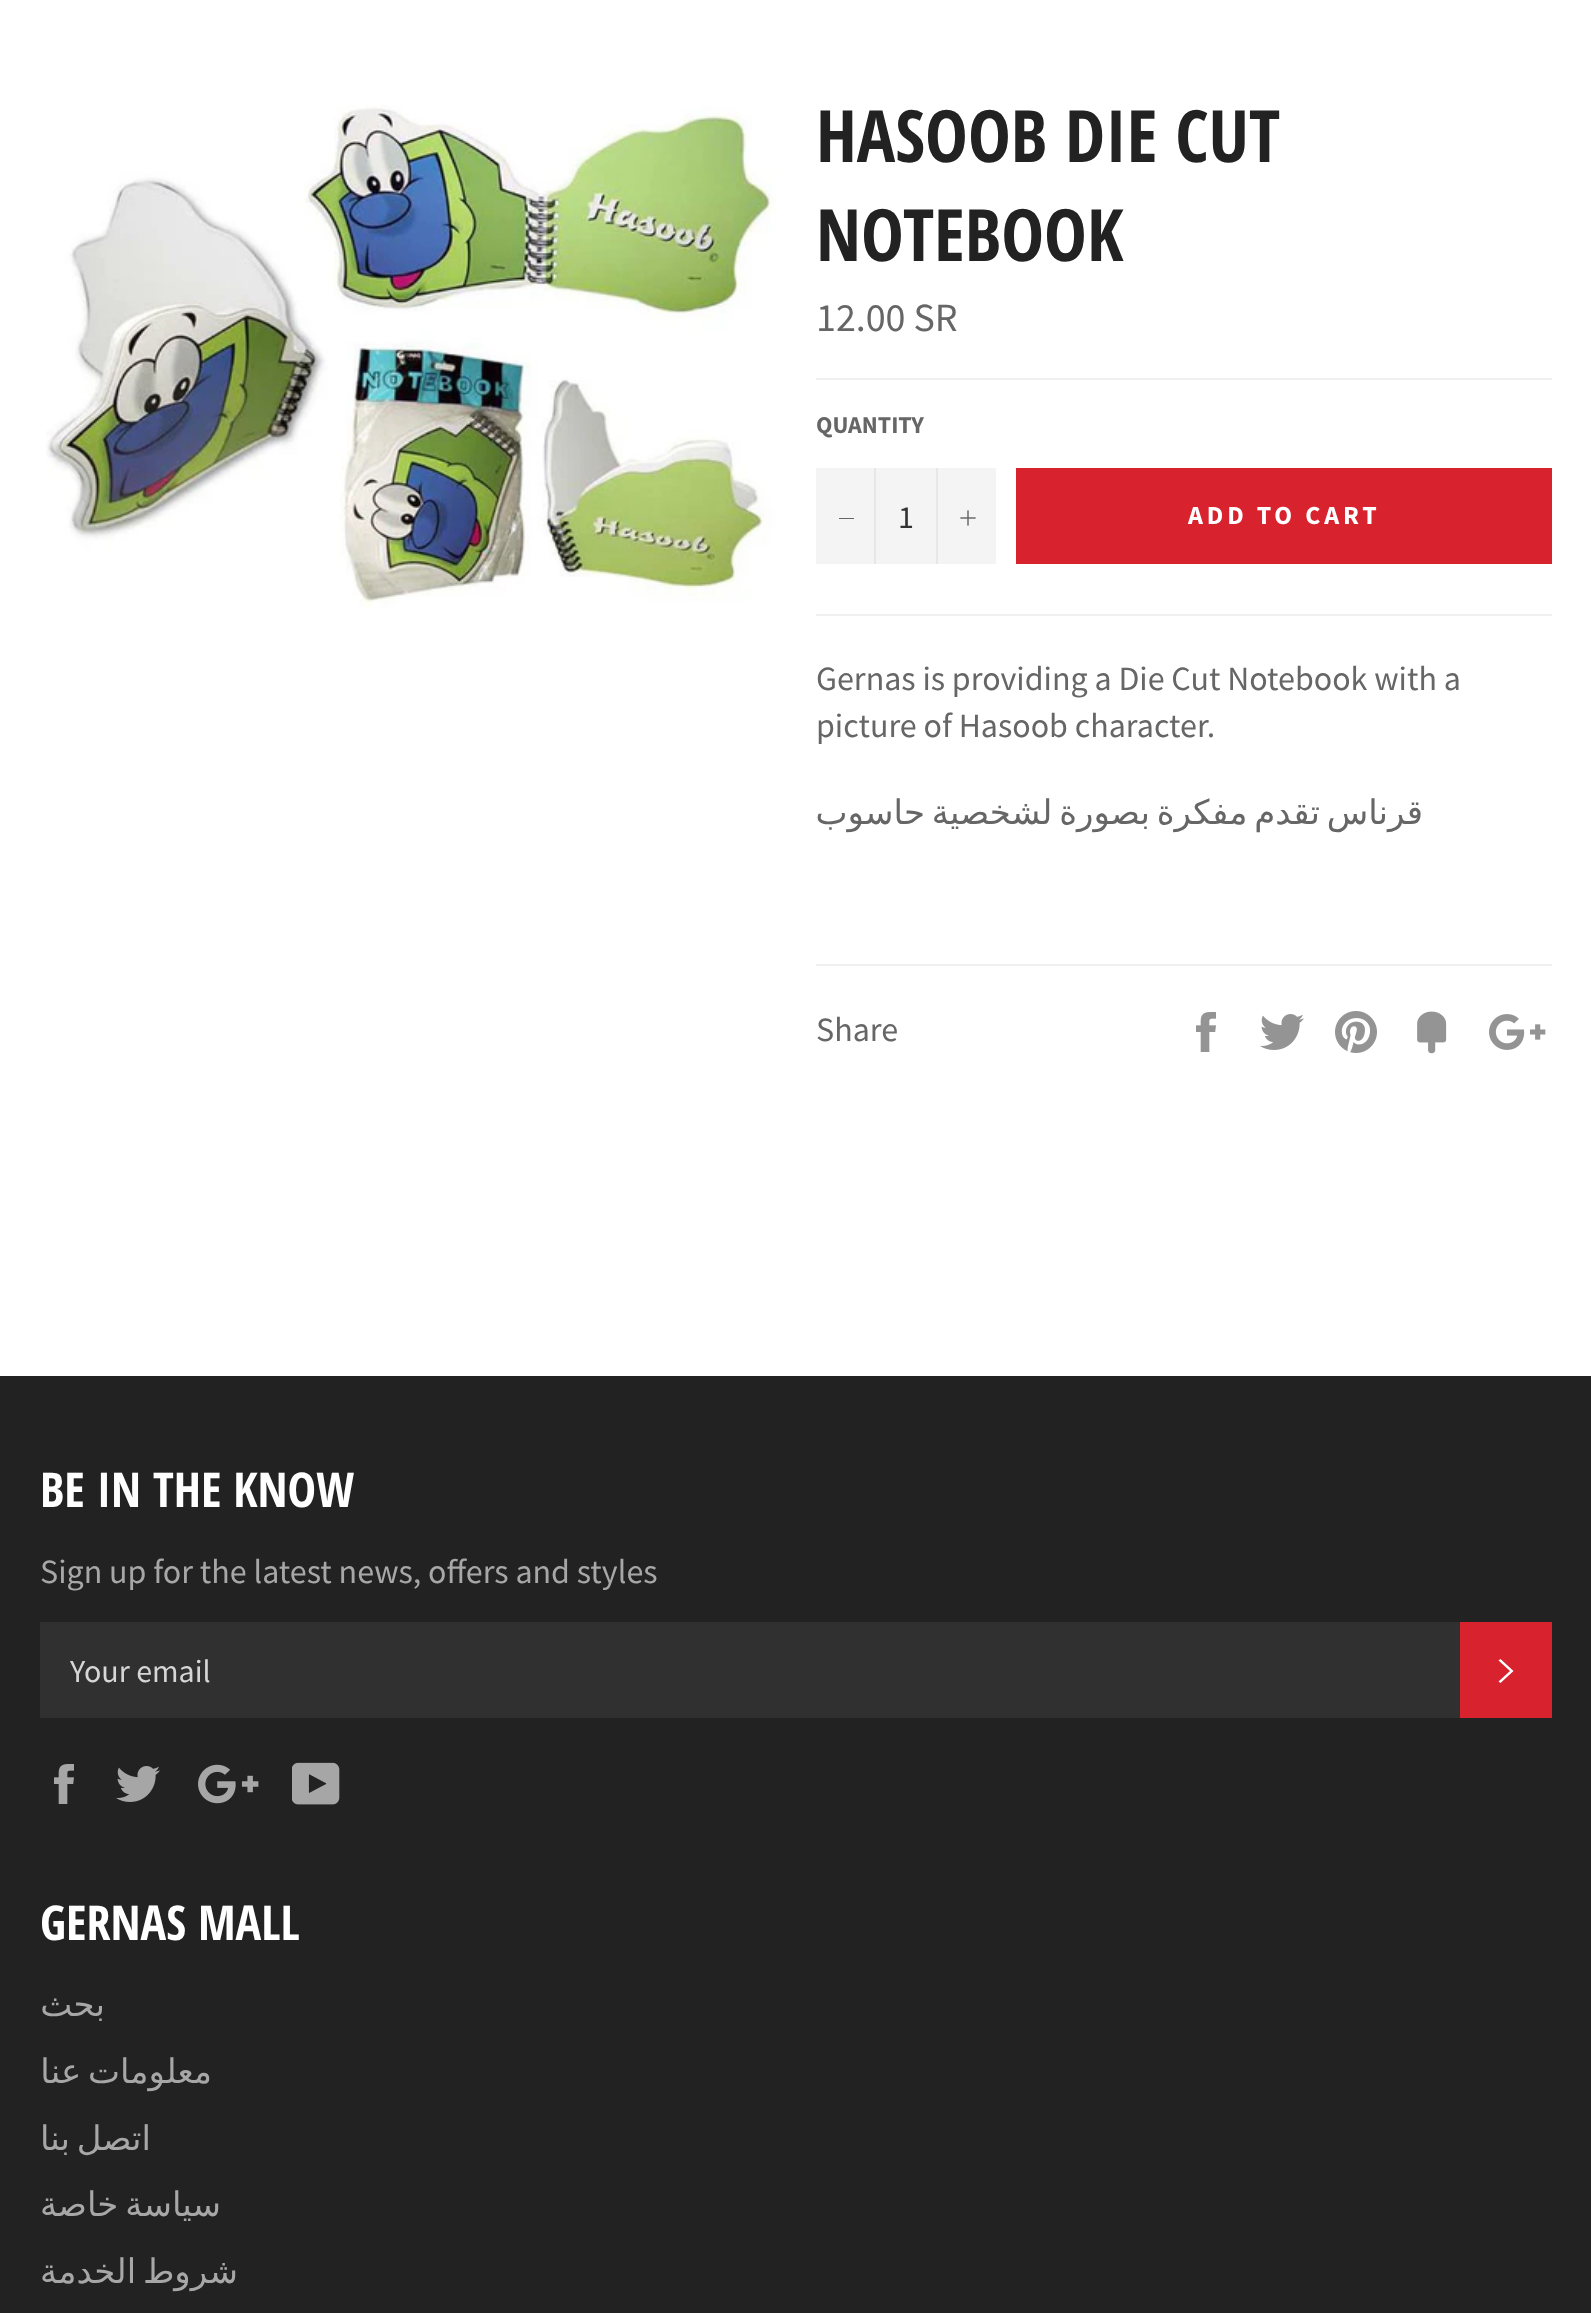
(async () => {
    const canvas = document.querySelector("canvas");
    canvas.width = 1591;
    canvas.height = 2313;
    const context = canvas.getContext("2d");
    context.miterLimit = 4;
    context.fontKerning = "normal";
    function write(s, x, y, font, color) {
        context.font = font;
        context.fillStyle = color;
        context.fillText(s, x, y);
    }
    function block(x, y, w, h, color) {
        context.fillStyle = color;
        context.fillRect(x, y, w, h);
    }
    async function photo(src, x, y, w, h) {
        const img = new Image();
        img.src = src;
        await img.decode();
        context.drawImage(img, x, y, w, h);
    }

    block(0, 0, 1591, 2313, "rgb(255, 255, 255)");
    await photo("media/1.png", 46, 105, 730, 503);
    write("HASOOB DIE CUT", 816, 162, "bold 72px Open Sans Condensed", "rgb(34, 34, 34)");
    write("NOTEBOOK", 816, 261, "bold 72px Open Sans Condensed", "rgb(34, 34, 34)");
    write("12.00 SR", 816, 331, "40px Source Sans Pro", "rgb(102, 102, 102)");
    block(816, 378, 736, 2, "rgb(240, 240, 240)");
    write("QUANTITY", 816, 433, "bold 24px Source Sans Pro", "rgb(102, 102, 102)");
    block(816, 468, 180, 96, "rgb(244, 244, 244)");
    block(874, 468, 2, 96, "rgb(231, 231, 231)");
    block(839, 518, 15, 1, "rgb(102, 102, 102)");
    write("1", 898, 528, "32px Source Sans Pro", "rgb(51, 51, 51)");
    block(936, 468, 2, 96, "rgb(231, 231, 231)");
    await photo("media/2.png", 960, 510, 16, 16);
    block(1016, 468, 536, 96, "rgb(216, 35, 47)");
    context.letterSpacing = "3.9px";
    write("ADD TO CART", 1188, 524, "bold 26px Source Sans Pro", "rgb(255, 255, 255)");
    block(816, 614, 736, 2, "rgb(240, 240, 240)");
    context.letterSpacing = "0px";
    write("Gernas is providing a Die Cut Notebook with a", 816, 690, "34px Source Sans Pro", "rgb(102, 102, 102)");
    write("picture of Hasoob character.", 816, 737, "34px Source Sans Pro", "rgb(102, 102, 102)");
    context.wordSpacing = "-4px";
    context.direction = "rtl";
    write("قرناس تقدم مفكرة بصورة لشخصية حاسوب", 1423, 824, "34px DejaVu Sans", "rgb(102, 102, 102)");
    block(816, 964, 736, 2, "rgb(240, 240, 240)");
    context.wordSpacing = "0px";
    context.direction = "ltr";
    write("Share", 816, 1041, "34px Source Sans Pro", "rgb(102, 102, 102)");
    await photo("media/3.png", 1196, 1012, 20, 40);
    await photo("media/4.png", 1260, 1014, 44, 36);
    await photo("media/5.png", 1335, 1011, 42, 42);
    await photo("media/6.png", 1417, 1011, 30, 43);
    await photo("media/7.png", 1489, 1014, 57, 36);
    block(0, 1376, 1591, 937, "rgb(34, 34, 34)");
    write("BE IN THE KNOW", 40, 1507, "bold 48px Open Sans Condensed", "rgb(255, 255, 255)");
    write("Sign up for the latest news, offers and styles", 40, 1583, "34px Source Sans Pro", "rgb(167, 167, 167)");
    block(40, 1622, 1420, 96, "rgb(48, 48, 48)");
    write("Your email", 70, 1682, "32px Source Sans Pro", "rgb(214, 214, 214)");
    block(1460, 1622, 92, 96, "rgb(216, 35, 47)");
    context.fillStyle = "rgb(255, 255, 255)";
    context.beginPath();
    context.moveTo(1498.5, 1660.5);
    context.lineTo(1500.5, 1659);
    context.lineTo(1513.5, 1671);
    context.lineTo(1500.5, 1683);
    context.lineTo(1498.5, 1681.5);
    context.lineTo(1510, 1671);
    context.closePath();
    context.fill();
    await photo("media/8.png", 54, 1764, 20, 40);
    await photo("media/9.png", 116, 1766, 44, 36);
    await photo("media/10.png", 198, 1764, 61, 40);
    await photo("media/11.png", 292, 1762, 48, 43);
    write("GERNAS MALL", 40, 1940, "bold 48px Open Sans Condensed", "rgb(255, 255, 255)");
    context.direction = "rtl";
    write("بحث", 105, 2016, "34px DejaVu Sans", "rgb(167, 167, 167)");
    context.wordSpacing = "-4px";
    write("معلومات عنا", 212, 2083, "34px DejaVu Sans", "rgb(167, 167, 167)");
    write("اتصل بنا", 151, 2150, "34px DejaVu Sans", "rgb(167, 167, 167)");
    write("سياسة خاصة", 221, 2216, "34px DejaVu Sans", "rgb(167, 167, 167)");
    write("شروط الخدمة", 238, 2283, "34px DejaVu Sans", "rgb(167, 167, 167)");
})();
